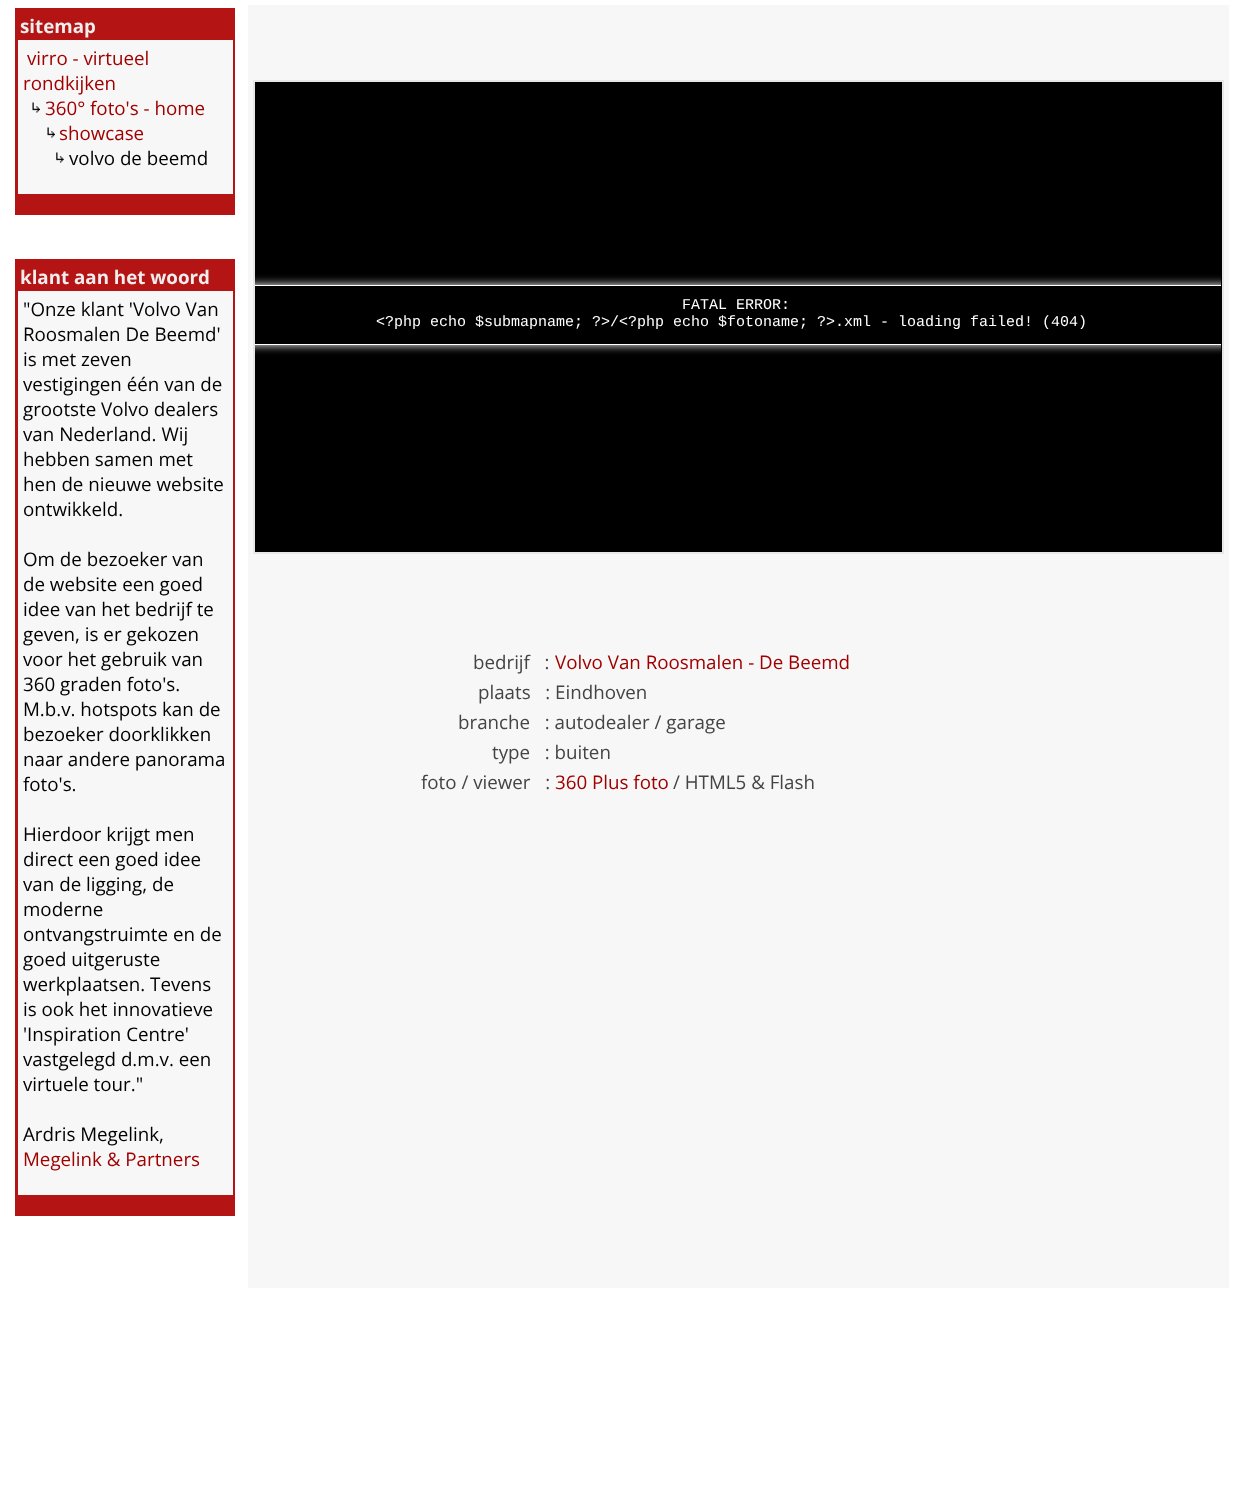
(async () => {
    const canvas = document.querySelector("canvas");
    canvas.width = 1247;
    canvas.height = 1510;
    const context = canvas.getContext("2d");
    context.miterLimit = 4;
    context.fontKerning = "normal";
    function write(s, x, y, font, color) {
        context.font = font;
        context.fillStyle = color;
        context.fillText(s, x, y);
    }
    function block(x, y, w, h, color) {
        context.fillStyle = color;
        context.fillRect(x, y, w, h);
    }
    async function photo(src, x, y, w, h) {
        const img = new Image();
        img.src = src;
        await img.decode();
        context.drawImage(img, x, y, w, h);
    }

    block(0, 0, 1247, 1510, "rgb(255, 255, 255)");
    block(15, 8, 220, 207, "rgb(180, 20, 20)");
    write("sitemap", 20, 33, "bold 18.75px Open Sans", "rgb(238, 238, 238)");
    block(18, 40, 215, 154, "rgb(247, 247, 247)");
    write("virro - virtueel", 27, 65, "18.75px Open Sans", "rgb(160, 0, 0)");
    write("rondkijken", 23, 90, "18.75px Open Sans", "rgb(160, 0, 0)");
    await photo("media/1.png", 32, 102, 8, 11);
    write("360° foto's - home", 45, 115, "18.75px Open Sans", "rgb(160, 0, 0)");
    await photo("media/2.png", 47, 127, 8, 11);
    write("showcase", 59, 140, "18.75px Open Sans", "rgb(160, 0, 0)");
    await photo("media/3.png", 56, 152, 8, 11);
    write("volvo de beemd", 69, 165, "18.75px Open Sans", "rgb(0, 0, 0)");
    block(15, 259, 220, 957, "rgb(180, 20, 20)");
    write("klant aan het woord", 20, 284, "bold 18.75px Open Sans", "rgb(238, 238, 238)");
    block(18, 291, 215, 904, "rgb(247, 247, 247)");
    write("\"Onze klant 'Volvo Van", 23, 316, "18.75px Open Sans", "rgb(0, 0, 0)");
    write("Roosmalen De Beemd'", 23, 341, "18.75px Open Sans", "rgb(0, 0, 0)");
    write("is met zeven", 23, 366, "18.75px Open Sans", "rgb(0, 0, 0)");
    write("vestigingen één van de", 23, 391, "18.75px Open Sans", "rgb(0, 0, 0)");
    write("grootste Volvo dealers", 23, 416, "18.75px Open Sans", "rgb(0, 0, 0)");
    write("van Nederland. Wij", 23, 441, "18.75px Open Sans", "rgb(0, 0, 0)");
    write("hebben samen met", 23, 466, "18.75px Open Sans", "rgb(0, 0, 0)");
    write("hen de nieuwe website", 23, 491, "18.75px Open Sans", "rgb(0, 0, 0)");
    write("ontwikkeld.", 23, 516, "18.75px Open Sans", "rgb(0, 0, 0)");
    write("Om de bezoeker van", 23, 566, "18.75px Open Sans", "rgb(0, 0, 0)");
    write("de website een goed", 23, 591, "18.75px Open Sans", "rgb(0, 0, 0)");
    write("idee van het bedrijf te", 23, 616, "18.75px Open Sans", "rgb(0, 0, 0)");
    write("geven, is er gekozen", 23, 641, "18.75px Open Sans", "rgb(0, 0, 0)");
    write("voor het gebruik van", 23, 666, "18.75px Open Sans", "rgb(0, 0, 0)");
    write("360 graden foto's.", 23, 691, "18.75px Open Sans", "rgb(0, 0, 0)");
    write("M.b.v. hotspots kan de", 23, 716, "18.75px Open Sans", "rgb(0, 0, 0)");
    write("bezoeker doorklikken", 23, 741, "18.75px Open Sans", "rgb(0, 0, 0)");
    write("naar andere panorama", 23, 766, "18.75px Open Sans", "rgb(0, 0, 0)");
    write("foto's.", 23, 791, "18.75px Open Sans", "rgb(0, 0, 0)");
    write("Hierdoor krijgt men", 23, 841, "18.75px Open Sans", "rgb(0, 0, 0)");
    write("direct een goed idee", 23, 866, "18.75px Open Sans", "rgb(0, 0, 0)");
    write("van de ligging, de", 23, 891, "18.75px Open Sans", "rgb(0, 0, 0)");
    write("moderne", 23, 916, "18.75px Open Sans", "rgb(0, 0, 0)");
    write("ontvangstruimte en de", 23, 941, "18.75px Open Sans", "rgb(0, 0, 0)");
    write("goed uitgeruste", 23, 966, "18.75px Open Sans", "rgb(0, 0, 0)");
    write("werkplaatsen. Tevens", 23, 991, "18.75px Open Sans", "rgb(0, 0, 0)");
    write("is ook het innovatieve", 23, 1016, "18.75px Open Sans", "rgb(0, 0, 0)");
    write("'Inspiration Centre'", 23, 1041, "18.75px Open Sans", "rgb(0, 0, 0)");
    write("vastgelegd d.m.v. een", 23, 1066, "18.75px Open Sans", "rgb(0, 0, 0)");
    write("virtuele tour.\"", 23, 1091, "18.75px Open Sans", "rgb(0, 0, 0)");
    write("Ardris Megelink,", 23, 1141, "18.75px Open Sans", "rgb(0, 0, 0)");
    write("Megelink & Partners", 23, 1166, "18.75px Open Sans", "rgb(160, 0, 0)");
    block(248, 5, 981, 1283, "rgb(247, 247, 247)");
    block(253, 80, 971, 474, "rgb(231, 231, 231)");
    block(255, 82, 967, 470, "rgb(0, 0, 0)");
    context.save();
    context.beginPath();
    context.rect(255, 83, 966, 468);
    context.clip();
    context.beginPath();
    context.moveTo(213, 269);
    context.lineTo(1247, 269);
    context.lineTo(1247, 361);
    context.lineTo(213, 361);
    context.closePath();
    context.moveTo(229, 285);
    context.lineTo(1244, 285);
    context.lineTo(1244, 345);
    context.lineTo(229, 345);
    context.closePath();
    context.clip("evenodd");
    context.fillStyle = "rgb(255, 255, 255)";
    context.filter = "blur(5px)";
    context.beginPath();
    context.rect(229, 285, 1015, 60);
    context.fill();
    context.filter = "none";
    context.restore();
    context.save();
    context.beginPath();
    context.rect(255, 83, 966, 468);
    context.clip();
    context.strokeStyle = "rgb(255, 255, 255)";
    context.strokeRect(229.5, 285.5, 1014, 59);
    context.restore();
    write("FATAL ERROR:", 682, 309, "15px Liberation Mono", "rgb(255, 255, 255)");
    write("<?php echo $submapname; ?>/<?php echo $fotoname; ?>.xml - loading failed! (404)", 376, 326, "15px Liberation Mono", "rgb(255, 255, 255)");
    write("bedrijf   :", 473, 669, "18.75px Open Sans", "rgb(68, 68, 68)");
    write("Volvo Van Roosmalen - De Beemd", 555, 669, "18.75px Open Sans", "rgb(160, 0, 0)");
    write("plaats   : Eindhoven", 478, 699, "18.75px Open Sans", "rgb(68, 68, 68)");
    write("branche   : autodealer / garage", 458, 729, "18.75px Open Sans", "rgb(68, 68, 68)");
    write("type   : buiten", 492, 759, "18.75px Open Sans", "rgb(68, 68, 68)");
    write("foto / viewer   :", 421, 789, "18.75px Open Sans", "rgb(68, 68, 68)");
    write("360 Plus foto", 555, 789, "18.75px Open Sans", "rgb(160, 0, 0)");
    write("/ HTML5 & Flash", 673, 789, "18.75px Open Sans", "rgb(68, 68, 68)");
})();
